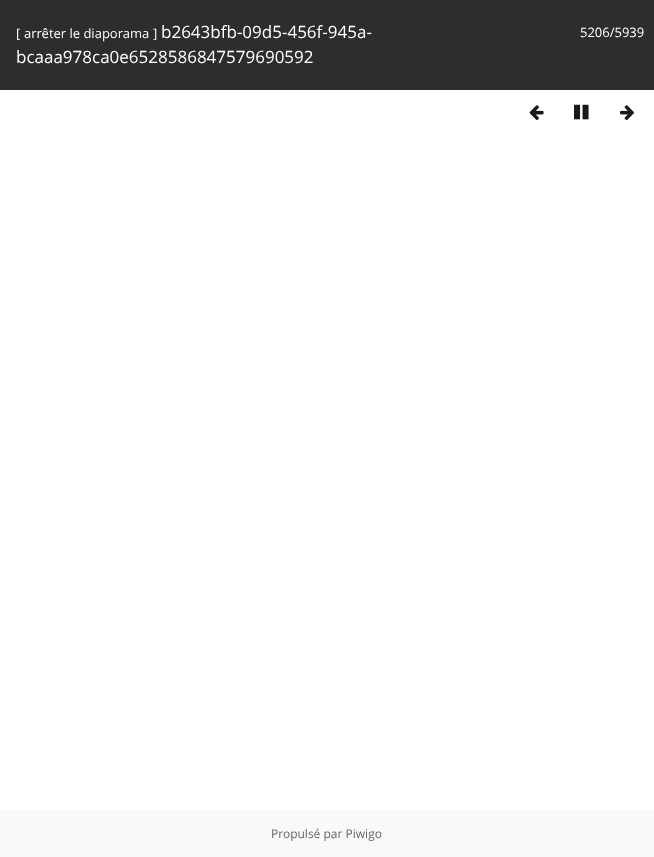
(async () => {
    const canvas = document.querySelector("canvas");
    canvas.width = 654;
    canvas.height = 857;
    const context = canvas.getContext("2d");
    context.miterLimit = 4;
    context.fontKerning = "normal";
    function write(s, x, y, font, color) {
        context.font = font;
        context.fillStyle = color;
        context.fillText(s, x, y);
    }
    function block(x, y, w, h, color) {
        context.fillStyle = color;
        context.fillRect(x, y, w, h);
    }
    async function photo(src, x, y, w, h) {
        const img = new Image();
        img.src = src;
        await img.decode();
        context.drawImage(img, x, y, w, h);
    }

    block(0, 0, 654, 857, "rgb(255, 255, 255)");
    block(0, 0, 654, 90, "rgb(45, 45, 45)");
    write("[", 16, 38, "13px Open Sans", "rgb(255, 255, 255)");
    write("arrêter le diaporama", 24, 38, "13px Open Sans", "rgb(255, 255, 255)");
    write("]", 153, 38, "13px Open Sans", "rgb(255, 255, 255)");
    write("b2643bfb-09d5-456f-945a-", 161, 38, "17px Open Sans", "rgb(255, 255, 255)");
    write("bcaaa978ca0e6528586847579690592", 16, 63, "17px Open Sans", "rgb(255, 255, 255)");
    write("5206/5939", 580, 37, "13px Open Sans", "rgb(255, 255, 255)");
    await photo("media/1.png", 529, 105, 15, 15);
    await photo("media/2.png", 574, 104, 15, 16);
    await photo("media/3.png", 620, 105, 14, 15);
    block(0, 810, 654, 47, "rgb(249, 249, 249)");
    write("Propulsé par Piwigo", 271, 838, "12px Open Sans", "rgb(102, 102, 102)");
})();
